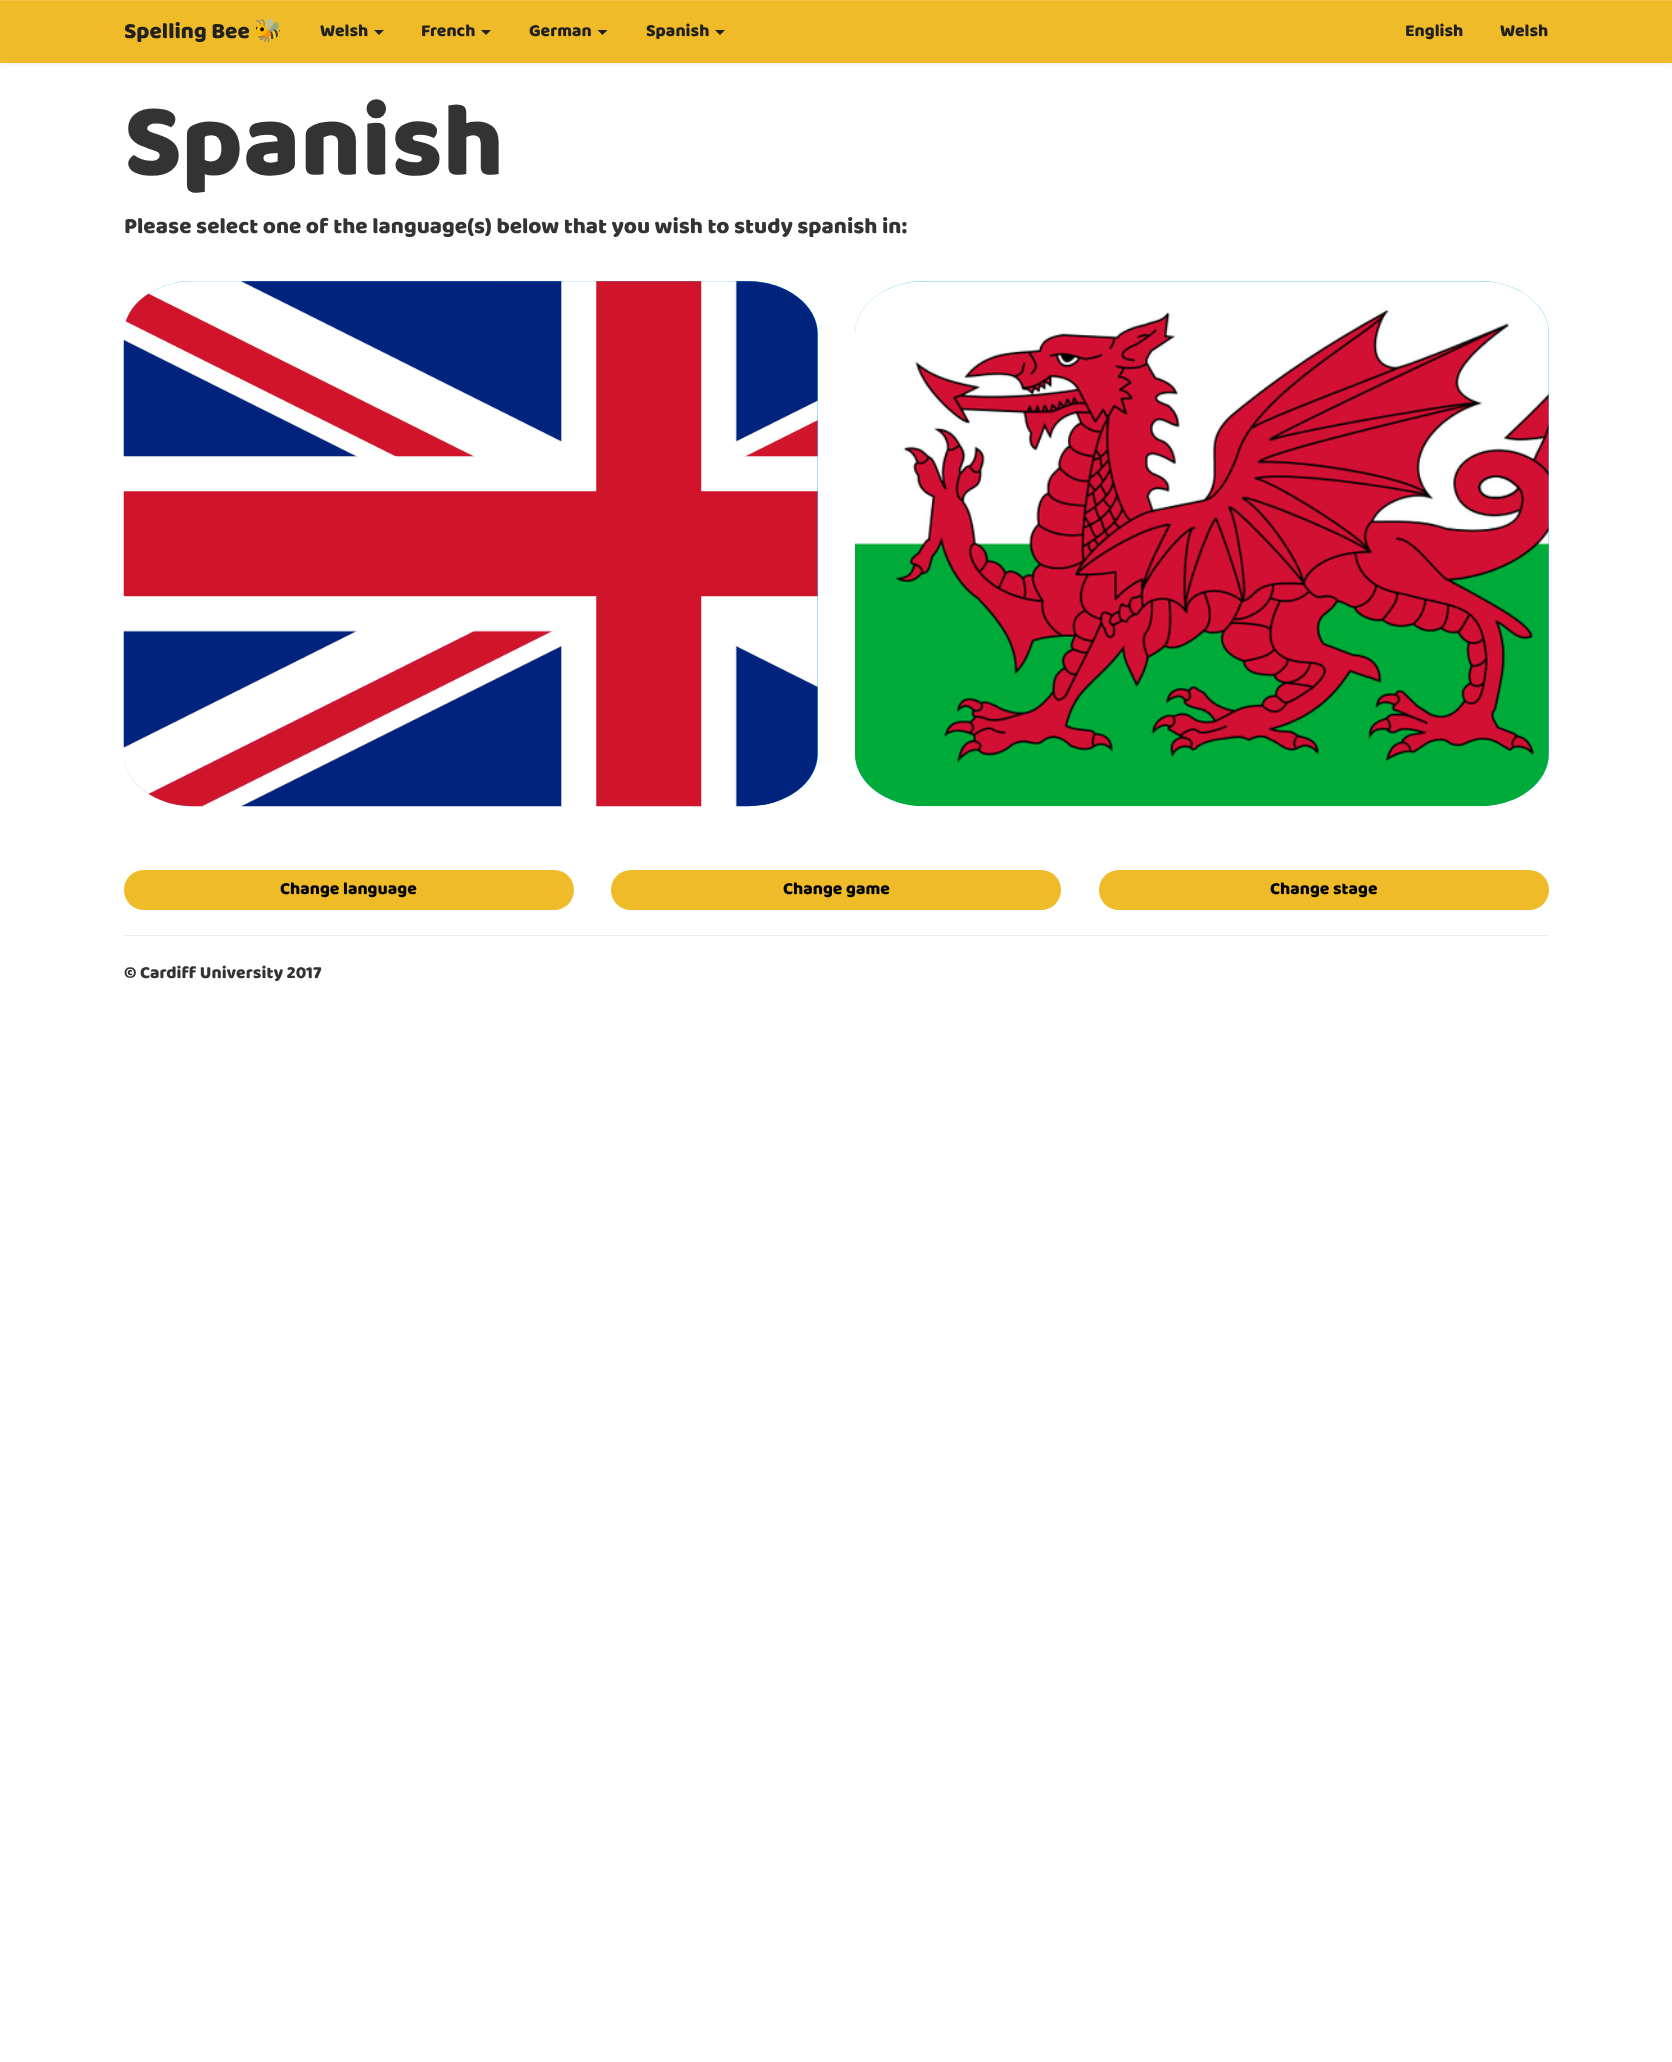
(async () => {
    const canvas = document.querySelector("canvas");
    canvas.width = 1672;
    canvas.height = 2062;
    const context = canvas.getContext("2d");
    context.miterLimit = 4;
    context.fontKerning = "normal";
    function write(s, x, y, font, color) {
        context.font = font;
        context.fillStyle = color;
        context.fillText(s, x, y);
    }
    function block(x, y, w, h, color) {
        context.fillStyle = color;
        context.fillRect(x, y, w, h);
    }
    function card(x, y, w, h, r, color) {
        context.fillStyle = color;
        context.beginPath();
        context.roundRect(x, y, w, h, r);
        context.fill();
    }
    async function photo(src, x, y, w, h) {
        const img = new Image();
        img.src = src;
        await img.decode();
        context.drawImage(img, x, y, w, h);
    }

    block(0, 0, 1672, 2062, "rgb(255, 255, 255)");
    context.fillStyle = "rgba(0, 0, 0, 0.07)";
    context.filter = "blur(3px)";
    context.beginPath();
    context.rect(0, 1, 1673, 63);
    context.fill();
    context.filter = "none";
    block(0, 1, 1672, 62, "rgb(240, 187, 41)");
    block(0, 0, 1672, 1, "rgb(242, 197, 73)");
    write("Spelling Bee", 124, 38, "22.5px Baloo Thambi", "rgb(33, 33, 33)");
    write("🐝", 254, 38, "22.5px Noto Color Emoji", "rgb(33, 33, 33)");
    write("Welsh", 320, 36, "17.5px Baloo Thambi", "rgb(33, 33, 33)");
    context.beginPath();
    context.moveTo(374, 30);
    context.lineTo(384, 30);
    context.lineTo(379, 35);
    context.closePath();
    context.fill();
    write("French", 421, 36, "17.5px Baloo Thambi", "rgb(33, 33, 33)");
    context.beginPath();
    context.moveTo(481, 30);
    context.lineTo(491, 30);
    context.lineTo(486, 35);
    context.closePath();
    context.fill();
    write("German", 529, 36, "17.5px Baloo Thambi", "rgb(33, 33, 33)");
    context.beginPath();
    context.moveTo(597.5, 30);
    context.lineTo(607.5, 30);
    context.lineTo(602.5, 35);
    context.closePath();
    context.fill();
    write("Spanish", 646, 36, "17.5px Baloo Thambi", "rgb(33, 33, 33)");
    context.beginPath();
    context.moveTo(715, 30);
    context.lineTo(725, 30);
    context.lineTo(720, 35);
    context.closePath();
    context.fill();
    write("English", 1405, 36, "17.5px Baloo Thambi", "rgb(33, 33, 33)");
    write("Welsh", 1500, 36, "17.5px Baloo Thambi", "rgb(33, 33, 33)");
    write("Spanish", 124, 174, "105px Baloo Thambi", "rgb(51, 51, 51)");
    write("Please select one of the language(s) below that you wish to study spanish in:", 124, 233, "22.5px Baloo Thambi", "rgb(51, 51, 51)");
    context.fillStyle = "rgb(75, 192, 234)";
    context.beginPath();
    context.moveTo(193, 281);
    context.lineTo(748, 281);
    context.bezierCurveTo(786, 281, 818, 305, 818, 334);
    context.lineTo(818, 754);
    context.bezierCurveTo(818, 783, 786, 806, 748, 806);
    context.lineTo(193, 806);
    context.bezierCurveTo(155, 806, 124, 783, 124, 754);
    context.lineTo(124, 334);
    context.bezierCurveTo(124, 305, 155, 281, 193, 281);
    context.closePath();
    context.fill();
    await photo("media/1.png", 123, 281, 695, 526);
    context.beginPath();
    context.moveTo(924, 281);
    context.lineTo(1479, 281);
    context.bezierCurveTo(1518, 281, 1549, 305, 1549, 334);
    context.lineTo(1549, 754);
    context.bezierCurveTo(1549, 783, 1518, 806, 1479, 806);
    context.lineTo(924, 806);
    context.bezierCurveTo(886, 806, 855, 783, 855, 754);
    context.lineTo(855, 334);
    context.bezierCurveTo(855, 305, 886, 281, 924, 281);
    context.closePath();
    context.fill();
    await photo("media/2.png", 855, 281, 694, 526);
    card(124, 870, 450, 40, 20, "rgb(240, 187, 41)");
    write("Change language", 280, 894, "17.5px Baloo Thambi", "rgb(0, 0, 0)");
    card(611, 870, 450, 40, 20, "rgb(240, 187, 41)");
    write("Change game", 783, 894, "17.5px Baloo Thambi", "rgb(0, 0, 0)");
    card(1099, 870, 450, 40, 20, "rgb(240, 187, 41)");
    write("Change stage", 1270, 894, "17.5px Baloo Thambi", "rgb(0, 0, 0)");
    block(124, 935, 1425, 1, "rgb(238, 238, 238)");
    write("© Cardiff University 2017", 124, 978, "17.5px Baloo Thambi", "rgb(51, 51, 51)");
})();
